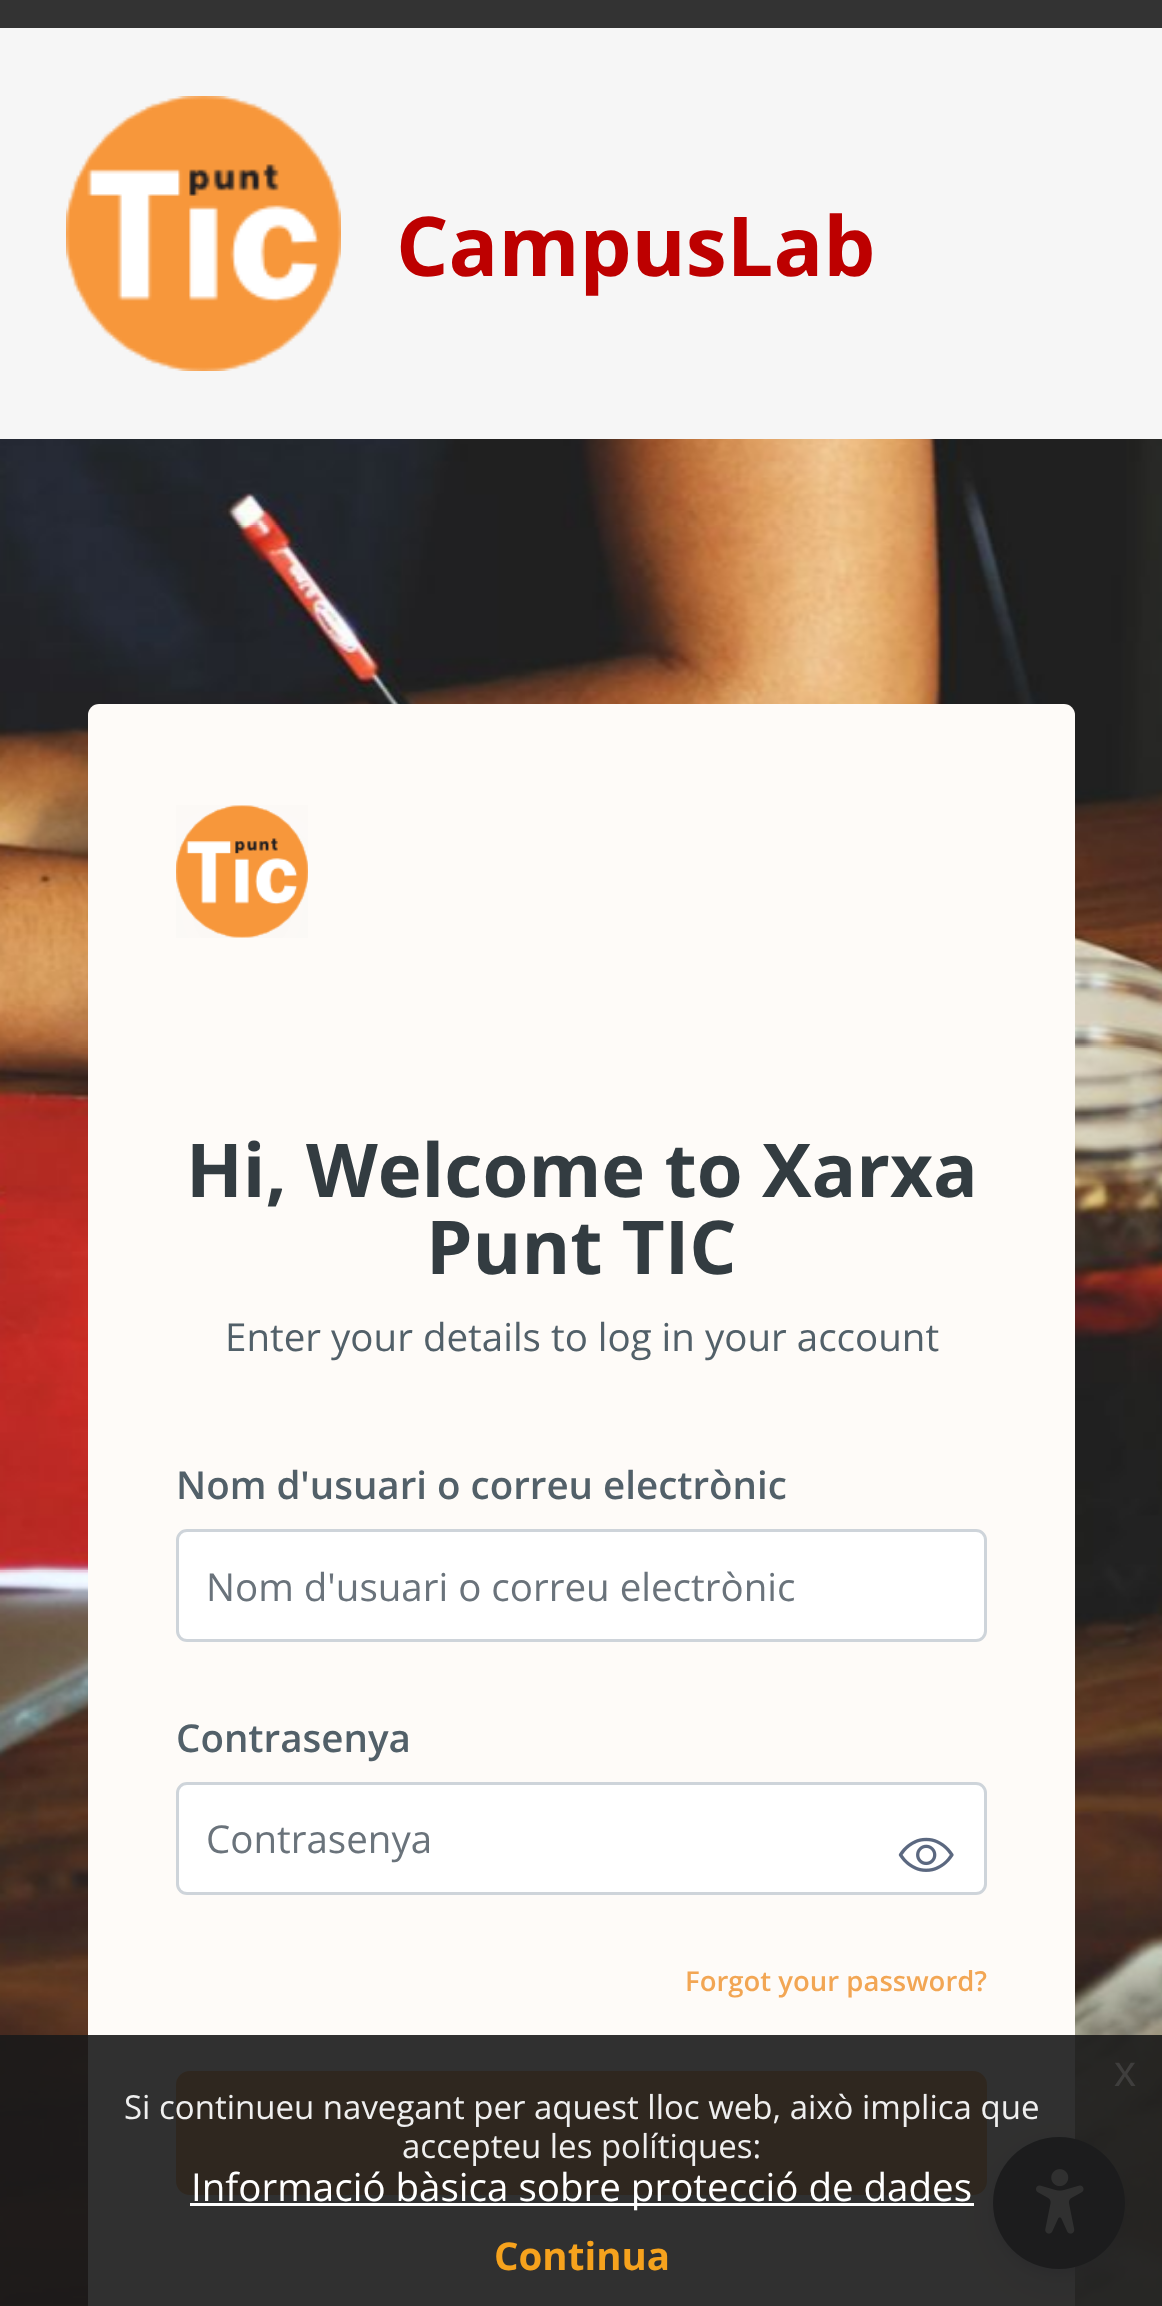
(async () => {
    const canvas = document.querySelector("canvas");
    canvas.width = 1162;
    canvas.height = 2306;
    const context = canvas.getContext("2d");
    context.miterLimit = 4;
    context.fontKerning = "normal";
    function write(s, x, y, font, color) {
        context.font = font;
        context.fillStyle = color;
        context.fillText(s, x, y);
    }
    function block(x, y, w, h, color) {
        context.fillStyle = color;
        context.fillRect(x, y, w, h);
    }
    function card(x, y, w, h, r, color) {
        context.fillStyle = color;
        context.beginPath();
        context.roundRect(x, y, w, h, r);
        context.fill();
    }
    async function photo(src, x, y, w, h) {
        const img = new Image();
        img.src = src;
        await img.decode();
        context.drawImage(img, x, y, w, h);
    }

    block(0, 0, 1162, 2306, "rgb(246, 246, 246)");
    block(0, 0, 1162, 28, "rgb(51, 51, 51)");
    await photo("media/1.png", 66, 96, 275, 275);
    write("CampusLab", 396, 276, "bold 82.5px Open Sans", "rgb(189, 0, 0)");
    await photo("media/2.png", 0, 439, 1162, 1867);
    card(88, 704, 987, 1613, 11, "rgb(254, 251, 248)");
    await photo("media/3.png", 176, 805, 132, 133);
    write("Hi, Welcome to Xarxa", 186, 1197, "bold 74.25px Open Sans", "rgb(51, 60, 65)");
    write("Punt TIC", 426, 1274, "bold 74.25px Open Sans", "rgb(51, 60, 65)");
    write("Enter your details to log in your account", 225, 1351, "38.5px Open Sans", "rgb(82, 96, 105)");
    write("Nom d'usuari o correu electrònic", 176, 1499, "600 38.5px Open Sans", "rgb(82, 96, 105)");
    context.fillStyle = "rgb(255, 255, 255)";
    context.beginPath();
    context.roundRect(177.5, 1530.5, 808, 110, 9.5);
    context.fill();
    context.strokeStyle = "rgb(206, 212, 218)";
    context.lineWidth = 3;
    context.stroke();
    write("Nom d'usuari o correu electrònic", 206, 1601, "38.5px Open Sans", "rgb(106, 115, 123)");
    write("Contrasenya", 176, 1752, "600 38.5px Open Sans", "rgb(82, 96, 105)");
    context.fillStyle = "rgb(255, 255, 255)";
    context.beginPath();
    context.roundRect(177.5, 1783.5, 808, 110, 9.5);
    context.fill();
    context.stroke();
    write("Contrasenya", 206, 1853, "38.5px Open Sans", "rgb(106, 115, 123)");
    await photo("media/4.png", 898, 1837, 56, 35);
    write("Forgot your password?", 685, 1991, "600 27.5px Open Sans", "rgb(242, 166, 84)");
    context.beginPath();
    context.roundRect(177.5, 2072.5, 808, 121, 12.5);
    context.fill();
    context.strokeStyle = "rgb(242, 166, 84)";
    context.stroke();
    context.fillStyle = "rgba(93, 100, 148, 0.2)";
    context.filter = "blur(5.5px)";
    context.beginPath();
    context.roundRect(993, 2142, 132, 132, 66);
    context.fill();
    context.filter = "none";
    context.fillStyle = "rgba(37, 44, 97, 0.15)";
    context.filter = "blur(20.5px)";
    context.beginPath();
    context.roundRect(993, 2151, 132, 132, 66);
    context.fill();
    context.filter = "none";
    context.fillStyle = "rgb(52, 58, 64)";
    context.beginPath();
    context.arc(1059, 2203, 66, 0, Math.PI * 2);
    context.fill();
    await photo("media/5.png", 1036, 2169, 48, 65);
    block(0, 2035, 1162, 271, "rgba(25, 25, 25, 0.9)");
    write("x", 1114, 2086, "44px Liberation Sans", "rgb(63, 62, 61)");
    write("Si continueu navegant per aquest lloc web, això implica que", 124, 2119, "33px Open Sans", "rgb(239, 239, 239)");
    write("accepteu les polítiques:", 402, 2158, "33px Open Sans", "rgb(239, 239, 239)");
    block(190, 2203, 784, 3, "rgb(255, 255, 255)");
    write("Informació bàsica sobre protecció de dades", 191, 2201, "38.5px Open Sans", "rgb(255, 255, 255)");
    write("Continua", 494, 2270, "bold 38.5px Open Sans", "rgb(246, 162, 29)");
})();
